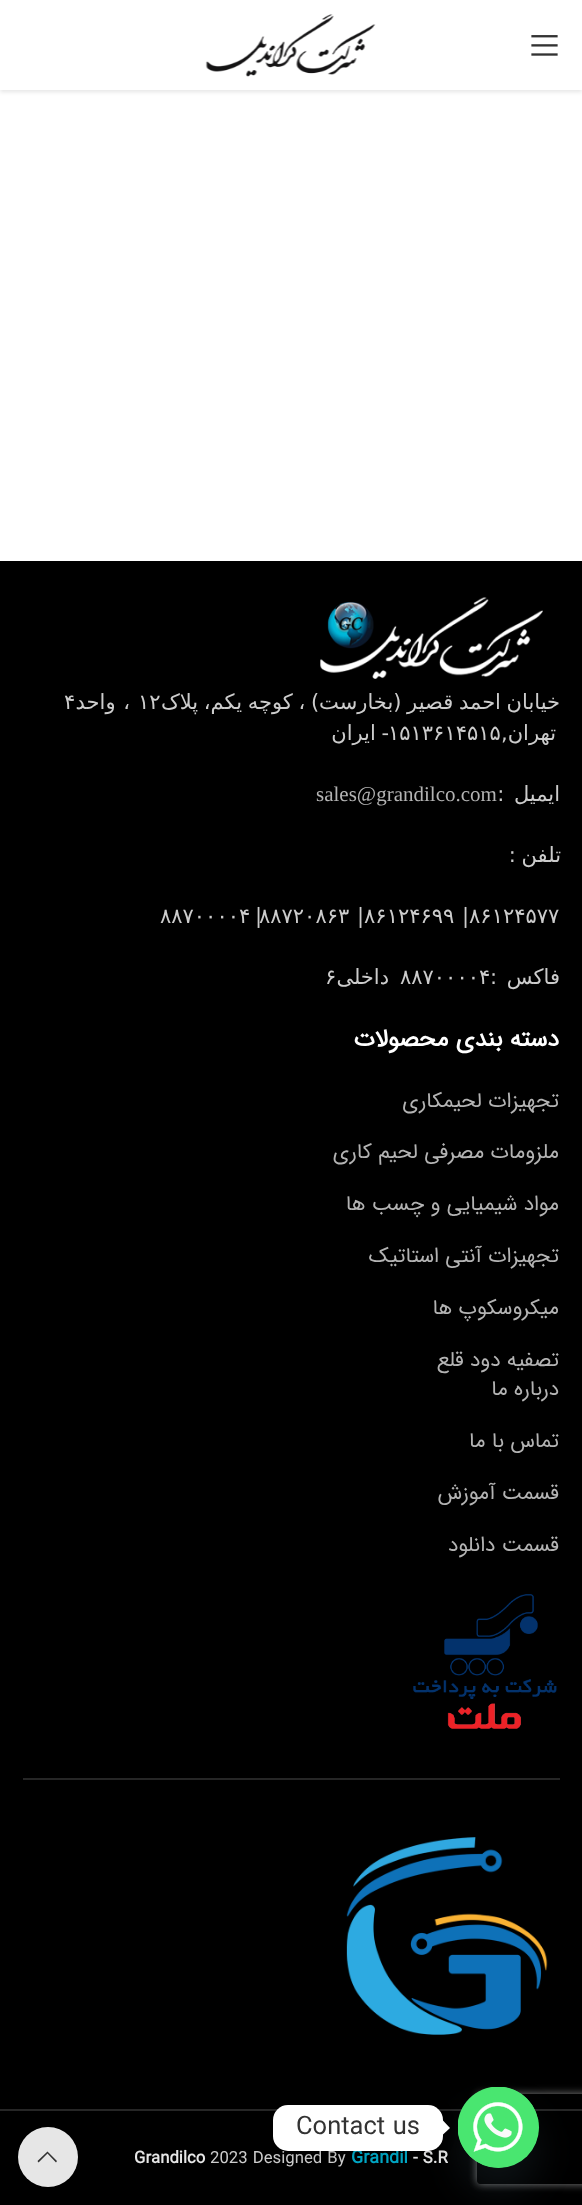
(async () => {
    const canvas = document.querySelector("canvas");
    canvas.width = 582;
    canvas.height = 2205;
    const context = canvas.getContext("2d");
    context.miterLimit = 4;
    context.fontKerning = "normal";
    function write(s, x, y, font, color) {
        context.font = font;
        context.fillStyle = color;
        context.fillText(s, x, y);
    }
    function block(x, y, w, h, color) {
        context.fillStyle = color;
        context.fillRect(x, y, w, h);
    }
    function card(x, y, w, h, r, color) {
        context.fillStyle = color;
        context.beginPath();
        context.roundRect(x, y, w, h, r);
        context.fill();
    }
    async function photo(src, x, y, w, h) {
        const img = new Image();
        img.src = src;
        await img.decode();
        context.drawImage(img, x, y, w, h);
    }

    block(0, 0, 582, 2205, "rgb(255, 255, 255)");
    context.fillStyle = "rgba(0, 0, 0, 0.1)";
    context.filter = "blur(2px)";
    context.beginPath();
    context.rect(0, 2, 582, 90);
    context.fill();
    context.filter = "none";
    block(0, 0, 582, 90, "rgb(255, 255, 255)");
    await photo("media/1.png", 531, 35, 27, 21);
    await photo("media/2.png", 205, 14, 171, 63);
    block(0, 561, 582, 1644, "rgb(0, 0, 0)");
    await photo("media/3.png", 320, 597, 223, 82);
    context.wordSpacing = "-1px";
    context.direction = "rtl";
    write("خیابان احمد قصیر (بخارست) ، کوچه یکم، پلاک", 560, 709, "21px DejaVu Sans", "rgb(204, 204, 204)");
    context.wordSpacing = "0px";
    context.direction = "ltr";
    write("۱۲", 138, 709, "21px DejaVu Sans", "rgb(204, 204, 204)");
    context.wordSpacing = "1px";
    context.direction = "rtl";
    write("، واحد", 130, 709, "21px DejaVu Sans", "rgb(204, 204, 204)");
    context.wordSpacing = "0px";
    context.direction = "ltr";
    write("۴", 64, 709, "21px DejaVu Sans", "rgb(204, 204, 204)");
    context.direction = "rtl";
    write("تهران,", 556, 740, "21px DejaVu Sans", "rgb(204, 204, 204)");
    context.direction = "ltr";
    write("۱۵۱۳۶۱۴۵۱۵", 388, 740, "21px DejaVu Sans", "rgb(204, 204, 204)");
    context.wordSpacing = "-1px";
    context.direction = "rtl";
    write("- ایران", 389, 740, "21px DejaVu Sans", "rgb(204, 204, 204)");
    context.wordSpacing = "3px";
    write("ایمیل :", 560, 801, "21px DejaVu Sans", "rgb(204, 204, 204)");
    context.wordSpacing = "0px";
    context.direction = "ltr";
    write("sales@grandilco.com", 316, 801, "21px Liberation Serif", "rgb(179, 179, 179)");
    context.wordSpacing = "-1px";
    context.direction = "rtl";
    write("تلفن :", 561, 862, "21px DejaVu Sans", "rgb(204, 204, 204)");
    context.wordSpacing = "0px";
    context.direction = "ltr";
    write("|۸۶۱۲۴۵۷۷", 462, 923, "21px DejaVu Sans", "rgb(204, 204, 204)");
    write("|۸۶۱۲۴۶۹۹", 357, 923, "21px DejaVu Sans", "rgb(204, 204, 204)");
    write("۸۸۷۲۰۸۶۳", 259, 923, "21px DejaVu Sans", "rgb(204, 204, 204)");
    write("|", 255, 923, "21px DejaVu Sans", "rgb(204, 204, 204)");
    write("۸۸۷۰۰۰۰۴", 160, 923, "21px DejaVu Sans", "rgb(204, 204, 204)");
    context.wordSpacing = "3px";
    context.direction = "rtl";
    write("فاکس :", 560, 984, "21px DejaVu Sans", "rgb(204, 204, 204)");
    context.wordSpacing = "0px";
    context.direction = "ltr";
    write("۸۸۷۰۰۰۰۴", 400, 984, "21px DejaVu Sans", "rgb(204, 204, 204)");
    context.direction = "rtl";
    write("داخلی", 389, 984, "21px DejaVu Sans", "rgb(204, 204, 204)");
    context.direction = "ltr";
    write("۶", 325, 984, "21px DejaVu Sans", "rgb(204, 204, 204)");
    context.direction = "rtl";
    write("دسته بندی محصولات", 559, 1046, "bold 24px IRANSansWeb", "rgb(255, 255, 255)");
    write("تجهیزات لحیمکاری", 559, 1107, "21px IRANSansWeb", "rgb(179, 179, 179)");
    write("ملزومات مصرفی لحیم کاری", 559, 1158, "21px IRANSansWeb", "rgb(179, 179, 179)");
    write("مواد شیمیایی و چسب ها", 559, 1210, "21px IRANSansWeb", "rgb(179, 179, 179)");
    write("تجهیزات آنتی استاتیک", 559, 1262, "21px IRANSansWeb", "rgb(179, 179, 179)");
    write("میکروسکوپ ها", 559, 1314, "21px IRANSansWeb", "rgb(179, 179, 179)");
    write("تصفیه دود قلع", 559, 1366, "21px IRANSansWeb", "rgb(179, 179, 179)");
    write("درباره ما", 559, 1395, "21px IRANSansWeb", "rgb(179, 179, 179)");
    write("تماس با ما", 559, 1447, "21px IRANSansWeb", "rgb(179, 179, 179)");
    write("قسمت آموزش", 559, 1499, "21px IRANSansWeb", "rgb(179, 179, 179)");
    write("قسمت دانلود", 559, 1551, "21px IRANSansWeb", "rgb(179, 179, 179)");
    block(23, 1778, 537, 2, "rgb(38, 38, 38)");
    await photo("media/4.png", 413, 1594, 144, 135);
    await photo("media/5.png", 346, 1837, 202, 198);
    block(0, 2109, 582, 2, "rgb(38, 38, 38)");
    context.direction = "ltr";
    write("- S.R", 413, 2163, "bold 16.75px IRANSansWeb", "rgb(230, 230, 230)");
    write("Grandil", 351, 2163, "bold 18px IRANSansWeb", "rgb(1, 168, 198)");
    write("2023 Designed By", 210, 2163, "16.75px IRANSansWeb", "rgb(204, 204, 204)");
    write("Grandilco", 134, 2163, "bold 16.75px IRANSansWeb", "rgb(230, 230, 230)");
    context.save();
    context.beginPath();
    context.moveTo(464, 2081);
    context.lineTo(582, 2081);
    context.lineTo(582, 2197);
    context.lineTo(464, 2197);
    context.closePath();
    context.moveTo(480, 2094);
    context.lineTo(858, 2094);
    context.bezierCurveTo(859.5, 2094, 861, 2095.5, 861, 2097);
    context.lineTo(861, 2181);
    context.bezierCurveTo(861, 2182.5, 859.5, 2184, 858, 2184);
    context.lineTo(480, 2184);
    context.bezierCurveTo(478.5, 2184, 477, 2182.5, 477, 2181);
    context.lineTo(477, 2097);
    context.bezierCurveTo(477, 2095.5, 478.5, 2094, 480, 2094);
    context.closePath();
    context.clip("evenodd");
    context.fillStyle = "rgb(128, 128, 128)";
    context.filter = "blur(4px)";
    context.beginPath();
    context.roundRect(477, 2094, 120, 90, 3);
    context.fill();
    context.filter = "none";
    context.restore();
    context.fillStyle = "rgba(73, 104, 126, 0.16)";
    context.filter = "blur(18px)";
    context.beginPath();
    context.roundRect(458, 2111, 81, 81, 40.5);
    context.fill();
    context.filter = "none";
    context.fillStyle = "rgb(73, 230, 112)";
    context.beginPath();
    context.arc(498.5, 2127.5, 40.5, 0, Math.PI * 2);
    context.fill();
    await photo("media/6.png", 458, 2087, 81, 81);
    context.fillStyle = "rgba(0, 0, 0, 0.15)";
    context.filter = "blur(6px)";
    context.beginPath();
    context.roundRect(273, 2106, 170, 47, 15);
    context.fill();
    context.filter = "none";
    card(273, 2105, 170, 46, 15, "rgb(255, 255, 255)");
    context.beginPath();
    context.moveTo(442.5, 2135);
    context.lineTo(442.5, 2120);
    context.lineTo(450, 2128);
    context.closePath();
    context.fill();
    write("Contact us", 296, 2134, "25.5px IRANSansWeb", "rgb(51, 51, 51)");
    context.fillStyle = "rgb(230, 230, 230)";
    context.beginPath();
    context.arc(48, 2157, 30, 0, Math.PI * 2);
    context.fill();
    context.fillStyle = "rgb(51, 51, 51)";
    context.beginPath();
    context.moveTo(56, 2162.5);
    context.lineTo(57, 2161);
    context.lineTo(47.5, 2151.5);
    context.lineTo(37.5, 2161);
    context.lineTo(38.5, 2162.5);
    context.lineTo(47.5, 2153.5);
    context.closePath();
    context.fill();
})();
